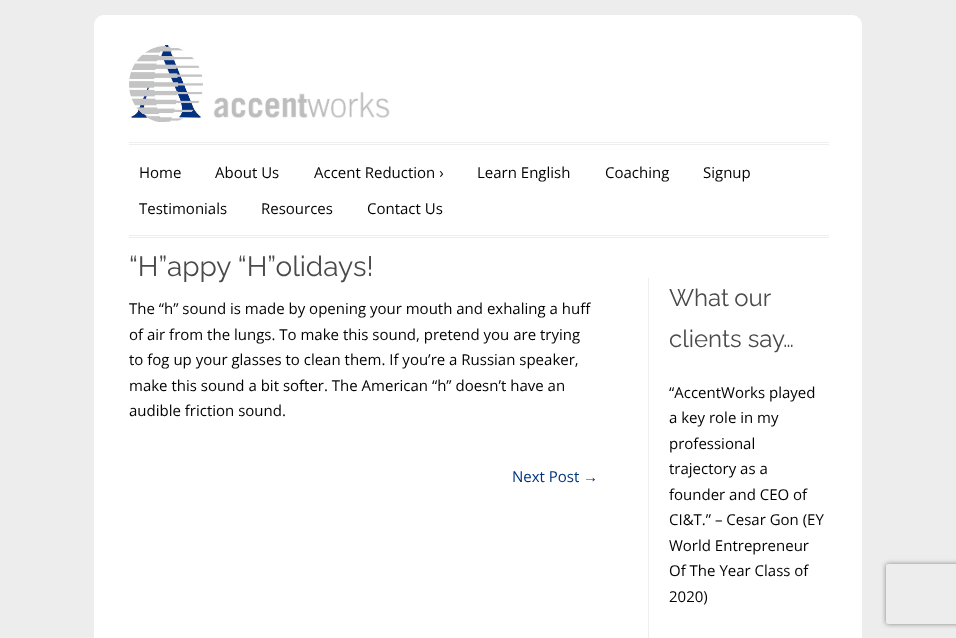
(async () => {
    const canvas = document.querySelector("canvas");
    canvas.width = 956;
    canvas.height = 638;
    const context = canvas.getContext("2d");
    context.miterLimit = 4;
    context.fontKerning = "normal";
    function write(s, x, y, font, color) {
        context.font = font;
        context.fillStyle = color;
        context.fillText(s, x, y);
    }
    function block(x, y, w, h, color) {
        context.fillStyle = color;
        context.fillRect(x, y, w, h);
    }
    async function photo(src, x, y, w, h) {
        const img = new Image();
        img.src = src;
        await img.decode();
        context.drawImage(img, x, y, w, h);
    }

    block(0, 0, 956, 638, "rgb(237, 237, 237)");
    context.fillStyle = "rgb(255, 255, 255)";
    context.beginPath();
    context.moveTo(104, 15);
    context.lineTo(852, 15);
    context.bezierCurveTo(857.5, 15, 862, 19.5, 862, 25);
    context.lineTo(862, 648);
    context.lineTo(94, 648);
    context.lineTo(94, 25);
    context.bezierCurveTo(94, 19.5, 98.5, 15, 104, 15);
    context.closePath();
    context.fill();
    await photo("media/1.png", 129, 45, 74, 77);
    await photo("media/2.png", 213, 91, 177, 27);
    block(129, 142, 700, 1, "rgb(238, 238, 238)");
    block(129, 144, 700, 1, "rgb(238, 238, 238)");
    block(129, 235, 700, 1, "rgb(238, 238, 238)");
    block(129, 237, 700, 1, "rgb(238, 238, 238)");
    write("Home", 139, 178, "15px Open Sans", "rgb(0, 0, 0)");
    write("About Us", 215, 178, "15px Open Sans", "rgb(0, 0, 0)");
    write("Accent Reduction ›", 314, 178, "15px Open Sans", "rgb(0, 0, 0)");
    write("Learn English", 477, 178, "15px Open Sans", "rgb(0, 0, 0)");
    write("Coaching", 605, 178, "15px Open Sans", "rgb(0, 0, 0)");
    write("Signup", 703, 178, "15px Open Sans", "rgb(0, 0, 0)");
    write("Testimonials", 139, 214, "15px Open Sans", "rgb(0, 0, 0)");
    write("Resources", 261, 214, "15px Open Sans", "rgb(0, 0, 0)");
    write("Contact Us", 367, 214, "15px Open Sans", "rgb(0, 0, 0)");
    write("“H”appy “H”olidays!", 129, 276, "28px Raleway", "rgb(74, 74, 74)");
    write("The “h” sound is made by opening your mouth and exhaling a huff", 129, 314, "15px Open Sans", "rgb(0, 0, 0)");
    write("of air from the lungs. To make this sound, pretend you are trying", 129, 340, "15px Open Sans", "rgb(0, 0, 0)");
    write("to fog up your glasses to clean them. If you’re a Russian speaker,", 129, 365, "15px Open Sans", "rgb(0, 0, 0)");
    write("make this sound a bit softer. The American “h” doesn’t have an", 129, 391, "15px Open Sans", "rgb(0, 0, 0)");
    write("audible friction sound.", 129, 416, "15px Open Sans", "rgb(0, 0, 0)");
    write("Next Post", 512, 482, "15px Open Sans", "rgb(0, 51, 127)");
    write("→", 583, 482, "15px Liberation Sans", "rgb(0, 51, 127)");
    block(648, 278, 1, 360, "rgb(238, 238, 238)");
    context.wordSpacing = "-1px";
    write("What our", 669, 306, "24px Raleway", "rgb(74, 74, 74)");
    context.wordSpacing = "0px";
    write("clients say…", 669, 347, "24px Raleway", "rgb(74, 74, 74)");
    write("“AccentWorks played", 669, 398, "15px Open Sans", "rgb(0, 0, 0)");
    write("a key role in my", 669, 423, "15px Open Sans", "rgb(0, 0, 0)");
    write("professional", 669, 449, "15px Open Sans", "rgb(0, 0, 0)");
    write("trajectory as a", 669, 474, "15px Open Sans", "rgb(0, 0, 0)");
    write("founder and CEO of", 669, 500, "15px Open Sans", "rgb(0, 0, 0)");
    write("CI&T.” – Cesar Gon (EY", 669, 525, "15px Open Sans", "rgb(0, 0, 0)");
    write("World Entrepreneur", 669, 551, "15px Open Sans", "rgb(0, 0, 0)");
    write("Of The Year Class of", 669, 576, "15px Open Sans", "rgb(0, 0, 0)");
    write("2020)", 669, 602, "15px Open Sans", "rgb(0, 0, 0)");
    context.save();
    context.beginPath();
    context.moveTo(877, 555);
    context.lineTo(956, 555);
    context.lineTo(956, 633);
    context.lineTo(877, 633);
    context.closePath();
    context.moveTo(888, 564);
    context.lineTo(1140, 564);
    context.bezierCurveTo(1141, 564, 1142, 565, 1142, 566);
    context.lineTo(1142, 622);
    context.bezierCurveTo(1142, 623, 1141, 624, 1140, 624);
    context.lineTo(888, 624);
    context.bezierCurveTo(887, 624, 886, 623, 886, 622);
    context.lineTo(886, 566);
    context.bezierCurveTo(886, 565, 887, 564, 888, 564);
    context.closePath();
    context.clip("evenodd");
    context.fillStyle = "rgb(128, 128, 128)";
    context.filter = "blur(2.5px)";
    context.beginPath();
    context.roundRect(886, 564, 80, 60, 2);
    context.fill();
    context.filter = "none";
    context.restore();
})();
